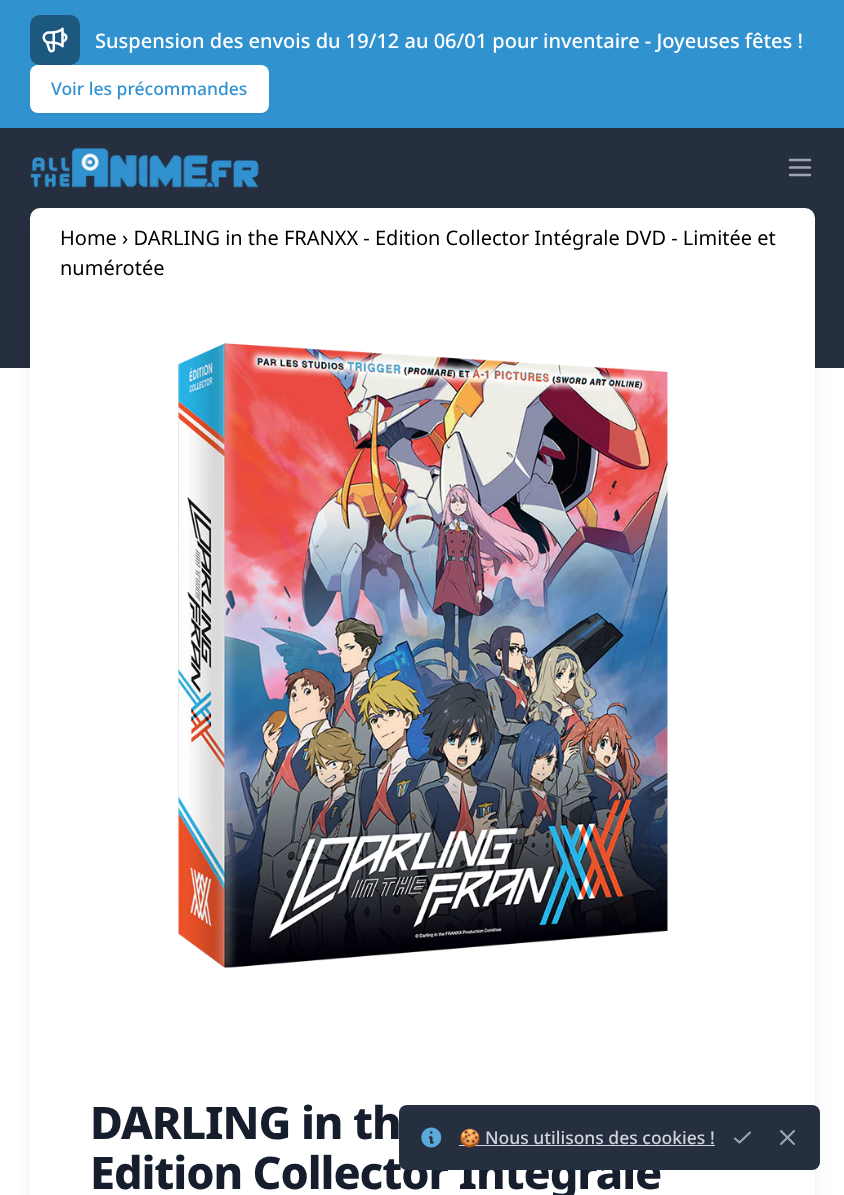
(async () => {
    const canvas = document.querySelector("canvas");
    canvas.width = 844;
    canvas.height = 1195;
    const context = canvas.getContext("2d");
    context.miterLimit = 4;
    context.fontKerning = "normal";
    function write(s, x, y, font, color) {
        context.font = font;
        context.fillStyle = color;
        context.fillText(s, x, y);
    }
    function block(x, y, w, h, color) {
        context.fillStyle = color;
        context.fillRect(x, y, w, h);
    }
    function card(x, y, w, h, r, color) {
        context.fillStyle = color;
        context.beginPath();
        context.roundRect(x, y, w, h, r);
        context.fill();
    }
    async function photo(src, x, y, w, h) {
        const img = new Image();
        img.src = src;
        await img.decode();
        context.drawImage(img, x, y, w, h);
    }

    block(0, 0, 844, 1195, "rgb(255, 255, 255)");
    block(0, 0, 844, 128, "rgb(49, 146, 208)");
    card(30, 15, 50, 50, 10, "rgb(29, 88, 126)");
    await photo("media/1.png", 42, 27, 26, 26);
    write("Suspension des envois du 19/12 au 06/01 pour inventaire - Joyeuses fêtes !", 95, 48, "500 20px Noto Sans", "rgb(255, 255, 255)");
    context.fillStyle = "rgba(0, 0, 0, 0.05)";
    context.filter = "blur(1px)";
    context.beginPath();
    context.roundRect(30, 66, 239, 48, 8);
    context.fill();
    context.filter = "none";
    card(30, 65, 239, 48, 8, "rgb(255, 255, 255)");
    write("Voir les précommandes", 51, 95, "500 17.5px Noto Sans", "rgb(49, 146, 208)");
    block(0, 128, 844, 240, "rgb(37, 47, 63)");
    await photo("media/2.png", 30, 147, 229, 41);
    context.beginPath();
    context.moveTo(790, 160);
    context.lineTo(810, 160);
    context.moveTo(790, 167.5);
    context.lineTo(810, 167.5);
    context.moveTo(790, 175);
    context.lineTo(810, 175);
    context.strokeStyle = "rgb(159, 166, 178)";
    context.lineWidth = 2.5;
    context.lineCap = "round";
    context.lineJoin = "round";
    context.stroke();
    context.fillStyle = "rgba(0, 0, 0, 0.1)";
    context.filter = "blur(9.5px)";
    context.beginPath();
    context.roundRect(34, 224, 777, 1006, 6);
    context.fill();
    context.filter = "none";
    card(30, 208, 785, 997, 10, "rgb(255, 255, 255)");
    write("Home › DARLING in the FRANXX - Edition Collector Intégrale DVD - Limitée et", 60, 245, "20px Noto Sans", "rgb(0, 0, 0)");
    write("numérotée", 60, 275, "20px Noto Sans", "rgb(0, 0, 0)");
    await photo("media/3.png", 178, 343, 490, 625);
    context.letterSpacing = "-1.1px";
    write("DARLING in th", 90, 1139, "800 45px Noto Sans", "rgb(22, 30, 46)");
    write("Edition Collector Intégrale", 90, 1189, "800 45px Noto Sans", "rgb(22, 30, 46)");
    card(399, 1105, 421, 65, 8, "rgb(37, 47, 63)");
    await photo("media/4.png", 421, 1127, 21, 21);
    block(459, 1145, 256, 1, "rgb(210, 214, 220)");
    context.letterSpacing = "0px";
    write("🍪", 459, 1144, "17.5px Noto Color Emoji", "rgb(210, 214, 220)");
    write("Nous utilisons des cookies !", 485, 1144, "500 17.5px Noto Sans", "rgb(210, 214, 220)");
    context.beginPath();
    context.moveTo(735, 1138.5);
    context.lineTo(739.5, 1142.5);
    context.lineTo(750, 1132.5);
    context.moveTo(781, 1144);
    context.lineTo(794, 1131);
    context.moveTo(781, 1131);
    context.lineTo(794, 1144);
    context.lineWidth = 2.1;
    context.stroke();
})();
